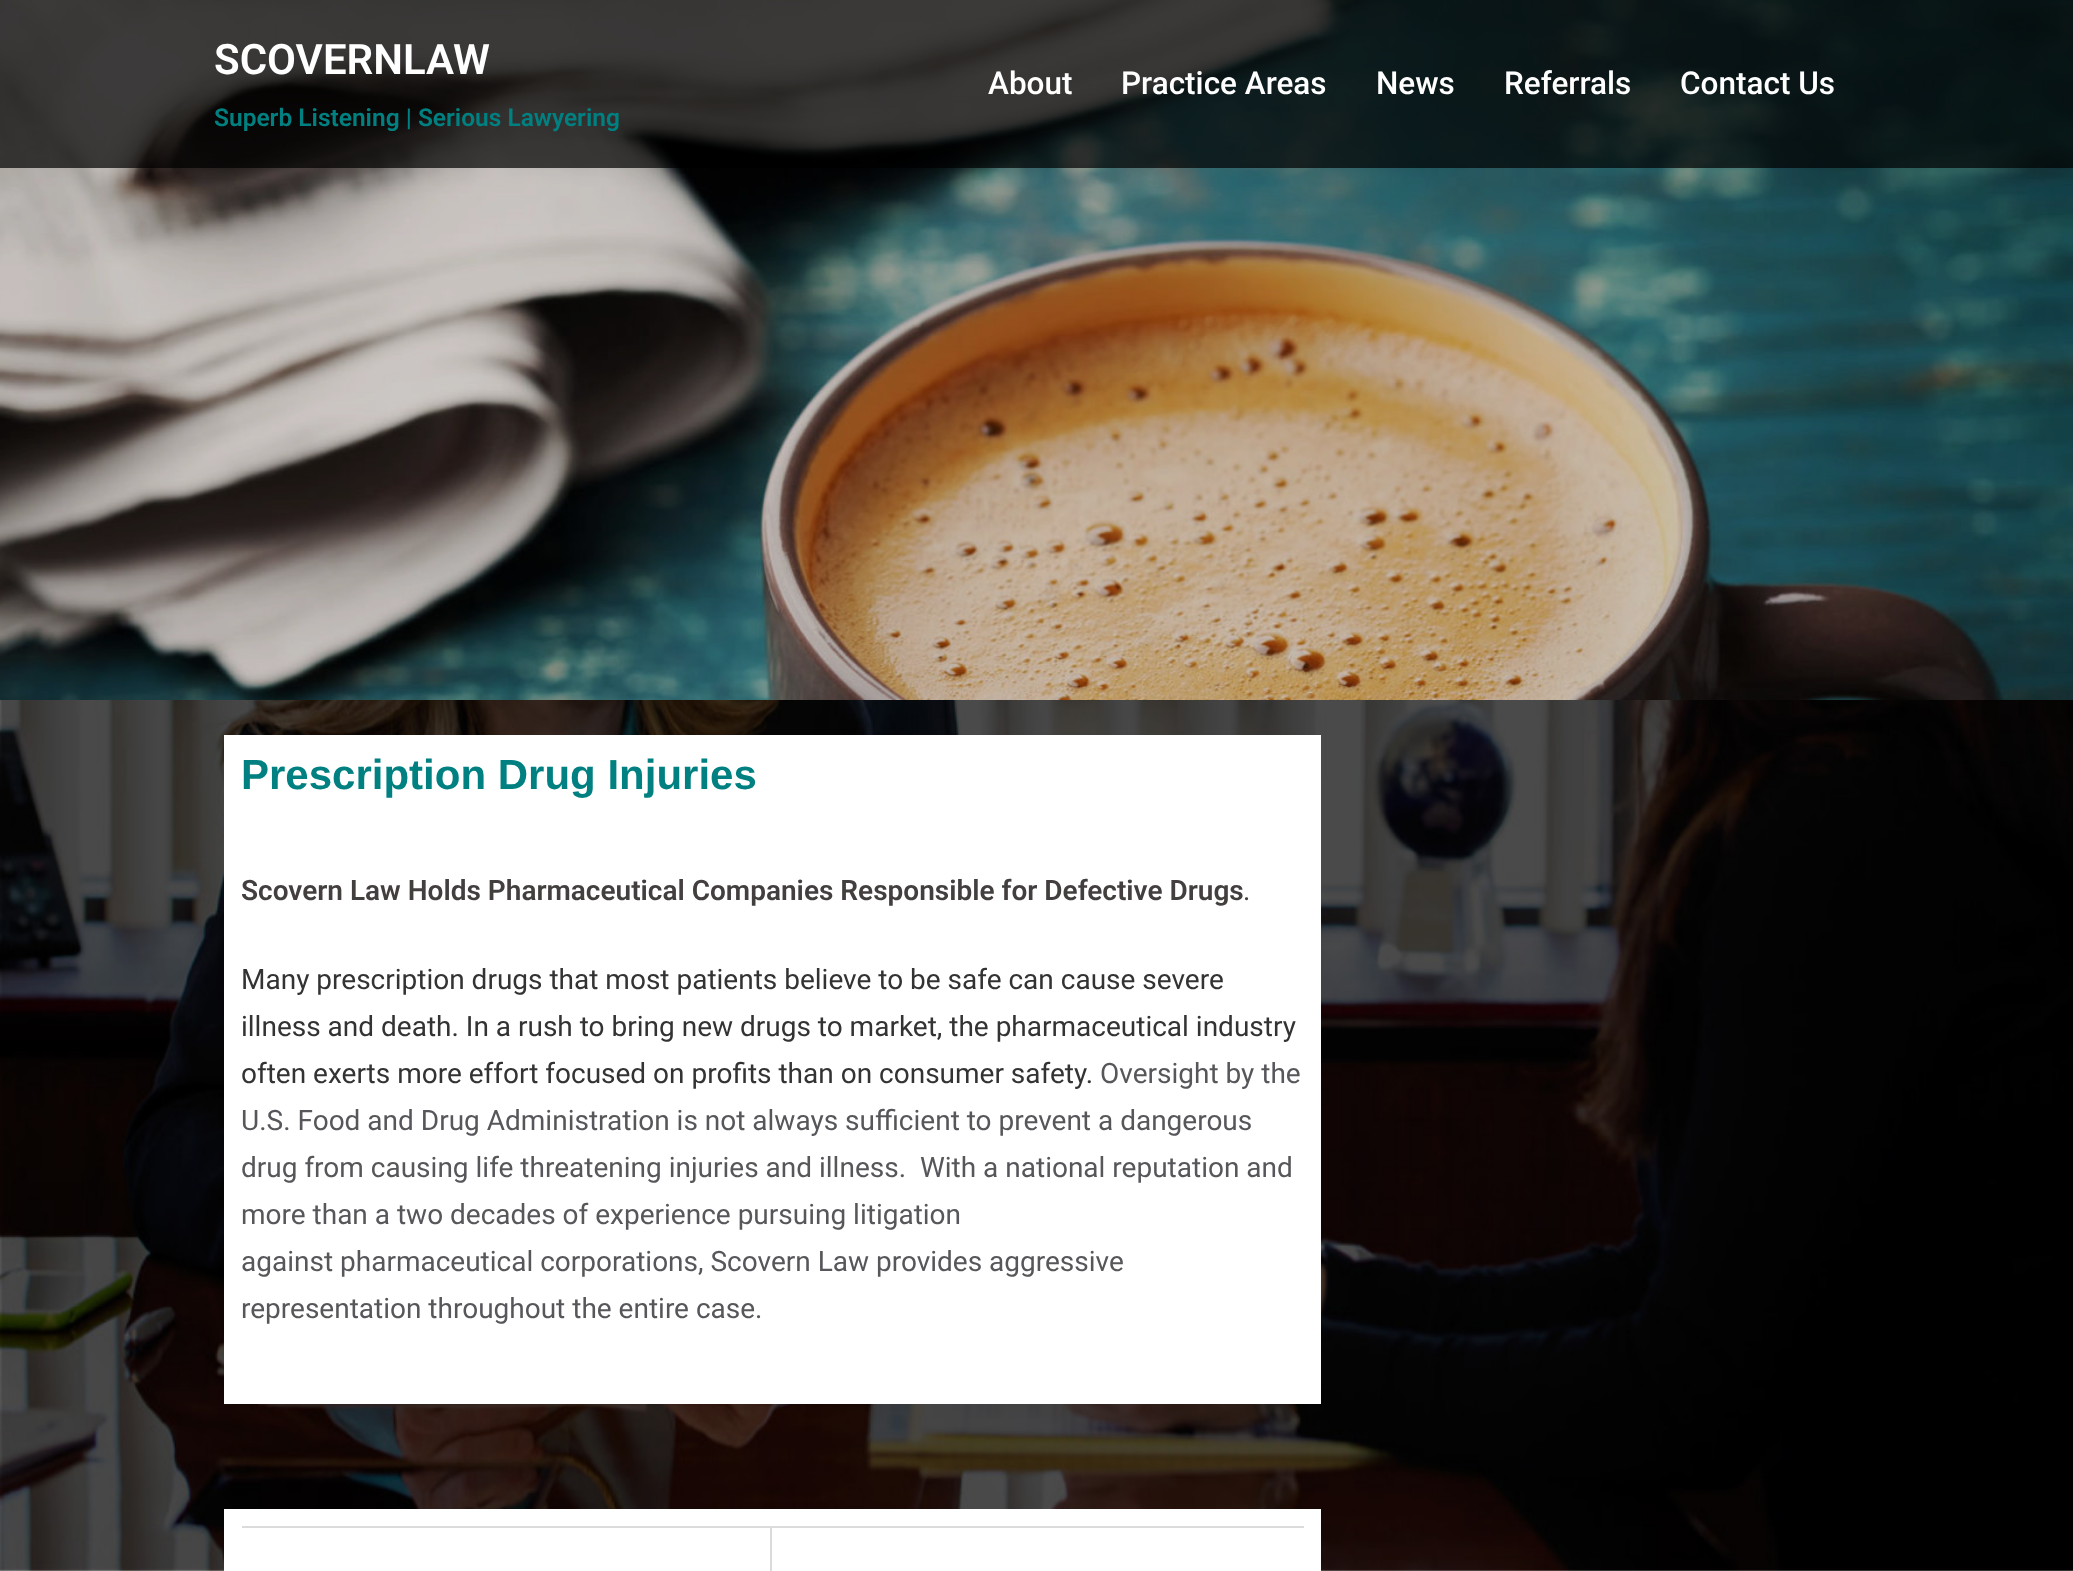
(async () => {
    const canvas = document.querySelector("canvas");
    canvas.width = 2073;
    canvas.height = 1571;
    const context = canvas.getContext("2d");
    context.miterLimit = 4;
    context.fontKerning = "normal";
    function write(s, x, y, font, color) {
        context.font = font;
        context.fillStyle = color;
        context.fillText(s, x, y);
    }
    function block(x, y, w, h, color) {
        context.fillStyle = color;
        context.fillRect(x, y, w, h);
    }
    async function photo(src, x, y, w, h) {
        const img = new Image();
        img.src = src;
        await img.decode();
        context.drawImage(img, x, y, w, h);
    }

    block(0, 0, 2073, 1571, "rgb(255, 255, 255)");
    await photo("media/1.png", 0, 0, 2073, 700);
    block(0, 0, 2073, 168, "rgba(0, 0, 0, 0.7)");
    write("SCOVERNLAW", 214, 74, "600 42px Roboto", "rgb(255, 255, 255)");
    write("Superb Listening | Serious Lawyering", 214, 126, "600 24.5px Roboto", "rgb(0, 128, 128)");
    write("About", 988, 94, "500 31.5px Roboto", "rgb(255, 255, 255)");
    write("Practice Areas", 1121, 94, "500 31.5px Roboto", "rgb(255, 255, 255)");
    write("News", 1376, 94, "500 31.5px Roboto", "rgb(255, 255, 255)");
    write("Referrals", 1504, 94, "500 31.5px Roboto", "rgb(255, 255, 255)");
    write("Contact Us", 1680, 94, "500 31.5px Roboto", "rgb(255, 255, 255)");
    await photo("media/2.png", 0, 700, 2073, 871);
    block(224, 735, 1097, 669, "rgb(255, 255, 255)");
    write("Prescription Drug Injuries", 241, 789, "bold 42px Liberation Sans", "rgb(0, 128, 128)");
    write("Scovern Law Holds Pharmaceutical Companies Responsible for Defective Drugs", 241, 900, "600 28px Roboto", "rgb(68, 63, 63)");
    write(".", 1243, 900, "28px Roboto", "rgb(68, 63, 63)");
    write("Many prescription drugs that most patients believe to be safe can cause severe", 241, 989, "28px Roboto", "rgb(51, 51, 51)");
    write("illness and death. In a rush to bring new drugs to market, the pharmaceutical industry", 241, 1036, "28px Roboto", "rgb(51, 51, 51)");
    write("often exerts more effort focused on profits than on consumer safety.", 241, 1083, "28px Roboto", "rgb(51, 51, 51)");
    write("Oversight by the", 1100, 1083, "28px Roboto", "rgb(87, 87, 91)");
    write("U.S. Food and Drug Administration is not always sufficient to prevent a dangerous", 241, 1130, "28px Roboto", "rgb(87, 87, 91)");
    write("drug from causing life threatening injuries and illness.  With a national reputation and", 241, 1177, "28px Roboto", "rgb(87, 87, 91)");
    write("more than a two decades of experience pursuing litigation", 241, 1224, "28px Roboto", "rgb(87, 87, 91)");
    write("against pharmaceutical corporations, Scovern Law provides aggressive", 241, 1271, "28px Roboto", "rgb(87, 87, 91)");
    write("representation throughout the entire case.", 241, 1318, "28px Roboto", "rgb(87, 87, 91)");
    block(224, 1509, 1097, 62, "rgb(255, 255, 255)");
    block(242, 1526, 1062, 2, "rgb(219, 219, 219)");
    block(770, 1528, 2, 43, "rgb(219, 219, 219)");
})();
